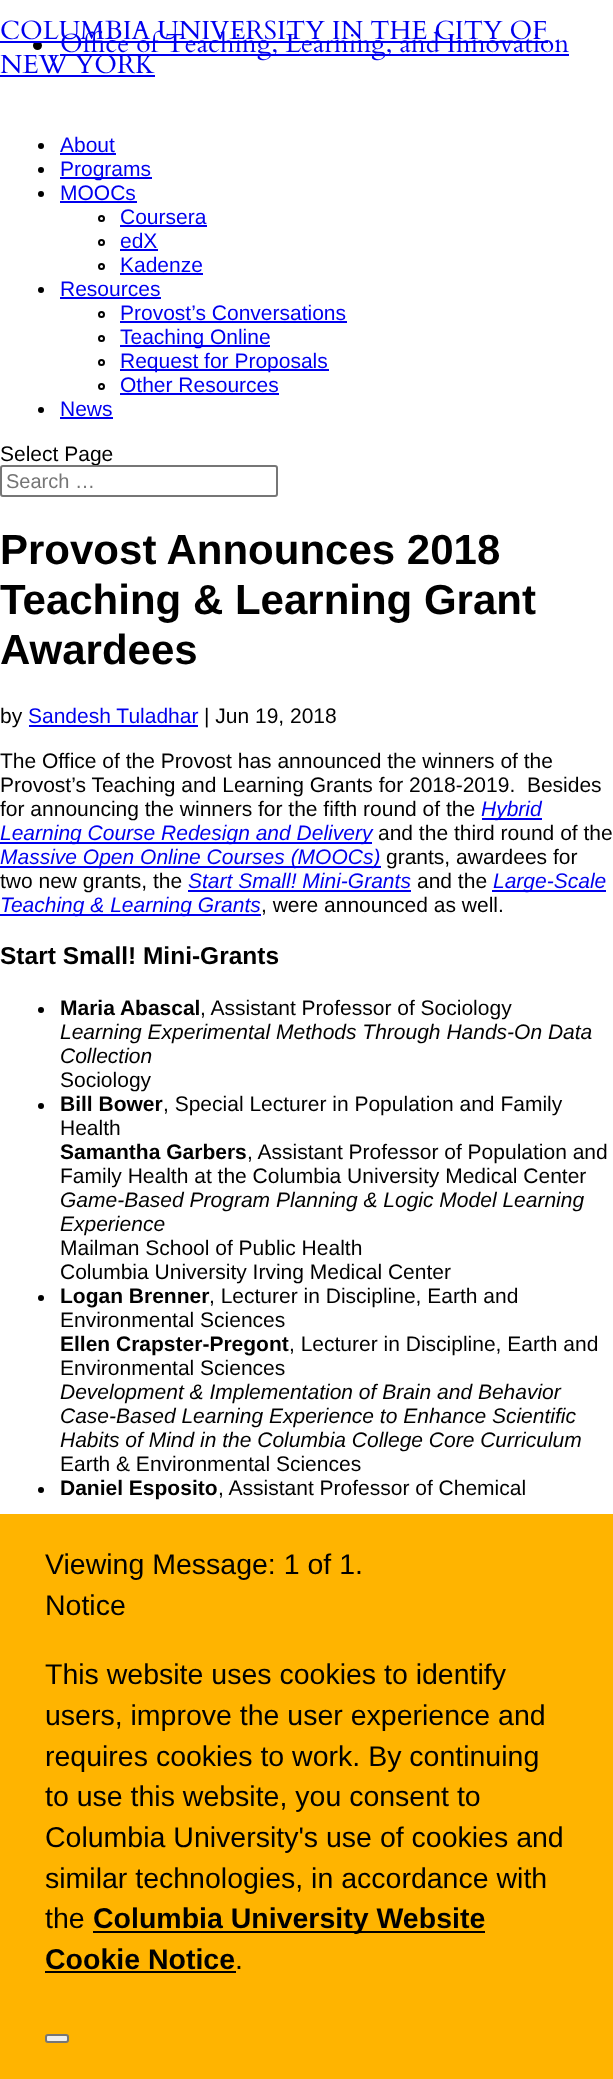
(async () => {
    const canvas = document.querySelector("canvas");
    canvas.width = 613;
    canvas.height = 2079;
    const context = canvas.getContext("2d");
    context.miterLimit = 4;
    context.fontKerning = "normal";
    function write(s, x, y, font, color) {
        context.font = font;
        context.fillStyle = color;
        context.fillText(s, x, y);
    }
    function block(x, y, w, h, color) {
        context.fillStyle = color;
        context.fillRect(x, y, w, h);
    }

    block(0, 0, 613, 2079, "rgb(255, 255, 255)");
    block(60, 54, 509, 2, "rgb(0, 0, 238)");
    write("Office of Teaching, Learning, and Innovation", 60, 52, "26.25px Cardo", "rgb(0, 0, 238)");
    write("COLUMBIA UNIVERSITY IN THE CITY OF", 0, 39, "26.25px Cardo", "rgb(0, 0, 238)");
    context.fillStyle = "rgb(0, 0, 0)";
    context.beginPath();
    context.arc(37.5, 45.5, 4.5, 0, Math.PI * 2);
    context.fill();
    block(0, 41, 548, 2, "rgb(0, 0, 238)");
    write("NEW YORK", 0, 73, "26.25px Cardo", "rgb(0, 0, 238)");
    block(0, 75, 155, 2, "rgb(0, 0, 238)");
    context.fillStyle = "rgb(0, 0, 0)";
    context.beginPath();
    context.arc(41, 146, 3, 0, Math.PI * 2);
    context.fill();
    write("About", 60, 152, "21px Liberation Sans", "rgb(0, 0, 238)");
    block(60, 153, 56, 2, "rgb(0, 0, 238)");
    context.fillStyle = "rgb(0, 0, 0)";
    context.beginPath();
    context.arc(41, 170, 3, 0, Math.PI * 2);
    context.fill();
    block(60, 177, 92, 2, "rgb(0, 0, 238)");
    write("Programs", 60, 176, "21px Liberation Sans", "rgb(0, 0, 238)");
    context.fillStyle = "rgb(0, 0, 0)";
    context.beginPath();
    context.arc(41, 194, 3, 0, Math.PI * 2);
    context.fill();
    write("MOOCs", 60, 200, "21px Liberation Sans", "rgb(0, 0, 238)");
    block(60, 201, 77, 2, "rgb(0, 0, 238)");
    context.beginPath();
    context.arc(101.5, 218.5, 2.5, 0, Math.PI * 2);
    context.strokeStyle = "rgb(0, 0, 0)";
    context.lineWidth = 2;
    context.stroke();
    write("Coursera", 120, 224, "21px Liberation Sans", "rgb(0, 0, 238)");
    block(120, 225, 87, 2, "rgb(0, 0, 238)");
    context.beginPath();
    context.arc(101.5, 242.5, 2.5, 0, Math.PI * 2);
    context.stroke();
    write("edX", 120, 248, "21px Liberation Sans", "rgb(0, 0, 238)");
    block(120, 249, 38, 2, "rgb(0, 0, 238)");
    context.beginPath();
    context.arc(101.5, 266.5, 2.5, 0, Math.PI * 2);
    context.stroke();
    write("Kadenze", 120, 272, "21px Liberation Sans", "rgb(0, 0, 238)");
    block(120, 273, 83, 2, "rgb(0, 0, 238)");
    context.fillStyle = "rgb(0, 0, 0)";
    context.beginPath();
    context.arc(41, 290, 3, 0, Math.PI * 2);
    context.fill();
    write("Resources", 60, 296, "21px Liberation Sans", "rgb(0, 0, 238)");
    block(60, 297, 101, 2, "rgb(0, 0, 238)");
    context.beginPath();
    context.arc(101.5, 314.5, 2.5, 0, Math.PI * 2);
    context.stroke();
    write("Provost’s Conversations", 120, 320, "21px Liberation Sans", "rgb(0, 0, 238)");
    block(120, 321, 227, 2, "rgb(0, 0, 238)");
    context.beginPath();
    context.arc(101.5, 338.5, 2.5, 0, Math.PI * 2);
    context.stroke();
    block(120, 345, 150, 2, "rgb(0, 0, 238)");
    write("Teaching Online", 120, 344, "21px Liberation Sans", "rgb(0, 0, 238)");
    context.beginPath();
    context.arc(101.5, 362.5, 2.5, 0, Math.PI * 2);
    context.stroke();
    block(120, 369, 209, 2, "rgb(0, 0, 238)");
    write("Request for Proposals", 120, 368, "21px Liberation Sans", "rgb(0, 0, 238)");
    context.beginPath();
    context.arc(101.5, 386.5, 2.5, 0, Math.PI * 2);
    context.stroke();
    write("Other Resources", 120, 392, "21px Liberation Sans", "rgb(0, 0, 238)");
    block(120, 393, 159, 2, "rgb(0, 0, 238)");
    context.fillStyle = "rgb(0, 0, 0)";
    context.beginPath();
    context.arc(41, 410, 3, 0, Math.PI * 2);
    context.fill();
    write("News", 60, 416, "21px Liberation Sans", "rgb(0, 0, 238)");
    block(60, 417, 53, 2, "rgb(0, 0, 238)");
    write("Select Page", 0, 461, "21px Liberation Sans", "rgb(0, 0, 0)");
    context.fillStyle = "rgb(255, 255, 255)";
    context.beginPath();
    context.roundRect(1, 466, 276, 30, 2);
    context.fill();
    context.strokeStyle = "rgb(118, 118, 118)";
    context.stroke();
    write("Search …", 6, 488, "20px Liberation Sans", "rgb(117, 117, 117)");
    write("Provost Announces 2018", 0, 564, "bold 42px Liberation Sans", "rgb(0, 0, 0)");
    write("Teaching & Learning Grant", 0, 614, "bold 42px Liberation Sans", "rgb(0, 0, 0)");
    write("Awardees", 0, 664, "bold 42px Liberation Sans", "rgb(0, 0, 0)");
    write("by", 0, 723, "21px Liberation Sans", "rgb(0, 0, 0)");
    write("Sandesh Tuladhar", 28, 723, "21px Liberation Sans", "rgb(0, 0, 238)");
    block(29, 725, 169, 2, "rgb(0, 0, 238)");
    write("| Jun 19, 2018", 204, 723, "21px Liberation Sans", "rgb(0, 0, 0)");
    write("The Office of the Provost has announced the winners of the", 0, 768, "21px Liberation Sans", "rgb(0, 0, 0)");
    write("Provost’s Teaching and Learning Grants for 2018-2019.  Besides", 0, 792, "21px Liberation Sans", "rgb(0, 0, 0)");
    write("for announcing the winners for the fifth round of the", 0, 816, "21px Liberation Sans", "rgb(0, 0, 0)");
    block(482, 818, 60, 2, "rgb(0, 0, 238)");
    write("Hybrid", 481, 816, "italic 21px Liberation Sans", "rgb(0, 0, 238)");
    block(0, 842, 372, 2, "rgb(0, 0, 238)");
    write("Learning Course Redesign and Delivery", 0, 840, "italic 21px Liberation Sans", "rgb(0, 0, 238)");
    write("and the third round of the", 378, 840, "21px Liberation Sans", "rgb(0, 0, 0)");
    block(0, 866, 381, 2, "rgb(0, 0, 238)");
    write("Massive Open Online Courses (MOOCs)", 0, 864, "italic 21px Liberation Sans", "rgb(0, 0, 238)");
    write("grants, awardees for", 386, 864, "21px Liberation Sans", "rgb(0, 0, 0)");
    write("two new grants, the", 0, 888, "21px Liberation Sans", "rgb(0, 0, 0)");
    write("Start Small! Mini-Grants", 188, 888, "italic 21px Liberation Sans", "rgb(0, 0, 238)");
    block(188, 890, 223, 2, "rgb(0, 0, 238)");
    write("and the", 417, 888, "21px Liberation Sans", "rgb(0, 0, 0)");
    block(492, 890, 114, 2, "rgb(0, 0, 238)");
    write("Large-Scale", 493, 888, "italic 21px Liberation Sans", "rgb(0, 0, 238)");
    block(0, 914, 261, 2, "rgb(0, 0, 238)");
    write("Teaching & Learning Grants", 0, 912, "italic 21px Liberation Sans", "rgb(0, 0, 238)");
    write(", were announced as well.", 261, 912, "21px Liberation Sans", "rgb(0, 0, 0)");
    write("Start Small! Mini-Grants", 0, 964, "bold 24.5px Liberation Sans", "rgb(0, 0, 0)");
    context.beginPath();
    context.arc(41, 1010, 3, 0, Math.PI * 2);
    context.fill();
    write("Maria Abascal", 60, 1015, "bold 21px Liberation Sans", "rgb(0, 0, 0)");
    write(", Assistant Professor of Sociology", 200, 1015, "21px Liberation Sans", "rgb(0, 0, 0)");
    write("Learning Experimental Methods Through Hands-On Data", 60, 1039, "italic 21px Liberation Sans", "rgb(0, 0, 0)");
    write("Collection", 60, 1063, "italic 21px Liberation Sans", "rgb(0, 0, 0)");
    write("Sociology", 60, 1087, "21px Liberation Sans", "rgb(0, 0, 0)");
    context.beginPath();
    context.arc(41, 1106, 3, 0, Math.PI * 2);
    context.fill();
    write("Bill Bower", 60, 1111, "bold 21px Liberation Sans", "rgb(0, 0, 0)");
    write(", Special Lecturer in Population and Family", 163, 1111, "21px Liberation Sans", "rgb(0, 0, 0)");
    write("Health", 60, 1135, "21px Liberation Sans", "rgb(0, 0, 0)");
    write("Samantha Garbers", 60, 1159, "bold 21px Liberation Sans", "rgb(0, 0, 0)");
    write(", Assistant Professor of Population and", 247, 1159, "21px Liberation Sans", "rgb(0, 0, 0)");
    write("Family Health at the Columbia University Medical Center", 60, 1183, "21px Liberation Sans", "rgb(0, 0, 0)");
    write("Game-Based Program Planning & Logic Model Learning", 60, 1207, "italic 21px Liberation Sans", "rgb(0, 0, 0)");
    write("Experience", 60, 1231, "italic 21px Liberation Sans", "rgb(0, 0, 0)");
    write("Mailman School of Public Health", 60, 1255, "21px Liberation Sans", "rgb(0, 0, 0)");
    write("Columbia University Irving Medical Center", 60, 1279, "21px Liberation Sans", "rgb(0, 0, 0)");
    context.beginPath();
    context.arc(41, 1298, 3, 0, Math.PI * 2);
    context.fill();
    write("Logan Brenner", 60, 1303, "bold 21px Liberation Sans", "rgb(0, 0, 0)");
    write(", Lecturer in Discipline, Earth and", 209, 1303, "21px Liberation Sans", "rgb(0, 0, 0)");
    write("Environmental Sciences", 60, 1327, "21px Liberation Sans", "rgb(0, 0, 0)");
    write("Ellen Crapster-Pregont", 60, 1351, "bold 21px Liberation Sans", "rgb(0, 0, 0)");
    write(", Lecturer in Discipline, Earth and", 289, 1351, "21px Liberation Sans", "rgb(0, 0, 0)");
    write("Environmental Sciences", 60, 1375, "21px Liberation Sans", "rgb(0, 0, 0)");
    write("Development & Implementation of Brain and Behavior", 60, 1399, "italic 21px Liberation Sans", "rgb(0, 0, 0)");
    write("Case-Based Learning Experience to Enhance Scientific", 60, 1423, "italic 21px Liberation Sans", "rgb(0, 0, 0)");
    write("Habits of Mind in the Columbia College Core Curriculum", 60, 1447, "italic 21px Liberation Sans", "rgb(0, 0, 0)");
    write("Earth & Environmental Sciences", 60, 1471, "21px Liberation Sans", "rgb(0, 0, 0)");
    context.beginPath();
    context.arc(41, 1490, 3, 0, Math.PI * 2);
    context.fill();
    write("Daniel Esposito", 60, 1495, "bold 21px Liberation Sans", "rgb(0, 0, 0)");
    write(", Assistant Professor of Chemical", 218, 1495, "21px Liberation Sans", "rgb(0, 0, 0)");
    block(0, 1514, 613, 565, "rgb(255, 180, 0)");
    write("Viewing Message: 1 of 1.", 45, 1574, "28.5px Liberation Sans", "rgb(0, 0, 0)");
    write("Notice", 45, 1615, "28.5px Liberation Sans", "rgb(0, 0, 0)");
    write("This website uses cookies to identify", 45, 1684, "28.5px Liberation Sans", "rgb(0, 0, 0)");
    write("users, improve the user experience and", 45, 1725, "28.5px Liberation Sans", "rgb(0, 0, 0)");
    write("requires cookies to work. By continuing", 45, 1766, "28.5px Liberation Sans", "rgb(0, 0, 0)");
    write("to use this website, you consent to", 45, 1806, "28.5px Liberation Sans", "rgb(0, 0, 0)");
    write("Columbia University's use of cookies and", 45, 1847, "28.5px Liberation Sans", "rgb(0, 0, 0)");
    write("similar technologies, in accordance with", 45, 1888, "28.5px Liberation Sans", "rgb(0, 0, 0)");
    write("the", 45, 1928, "28.5px Liberation Sans", "rgb(0, 0, 0)");
    block(93, 1931, 392, 2, "rgb(0, 0, 0)");
    write("Columbia University Website", 93, 1928, "bold 28.5px Liberation Sans", "rgb(0, 0, 0)");
    write("Cookie Notice", 45, 1969, "bold 28.5px Liberation Sans", "rgb(0, 0, 0)");
    block(45, 1971, 191, 2, "rgb(0, 0, 0)");
    write(".", 235, 1969, "28.5px Liberation Sans", "rgb(0, 0, 0)");
    context.fillStyle = "rgb(239, 239, 239)";
    context.beginPath();
    context.roundRect(46, 2035, 22, 7, 2);
    context.fill();
    context.stroke();
})();
